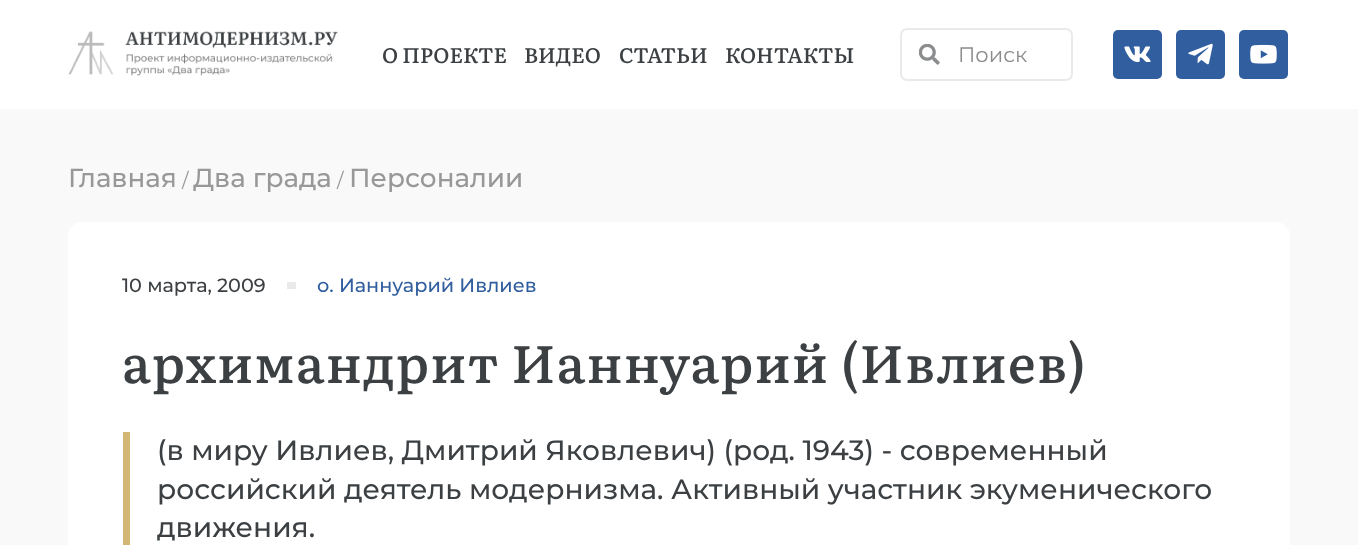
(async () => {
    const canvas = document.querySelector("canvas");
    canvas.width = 1358;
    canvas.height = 545;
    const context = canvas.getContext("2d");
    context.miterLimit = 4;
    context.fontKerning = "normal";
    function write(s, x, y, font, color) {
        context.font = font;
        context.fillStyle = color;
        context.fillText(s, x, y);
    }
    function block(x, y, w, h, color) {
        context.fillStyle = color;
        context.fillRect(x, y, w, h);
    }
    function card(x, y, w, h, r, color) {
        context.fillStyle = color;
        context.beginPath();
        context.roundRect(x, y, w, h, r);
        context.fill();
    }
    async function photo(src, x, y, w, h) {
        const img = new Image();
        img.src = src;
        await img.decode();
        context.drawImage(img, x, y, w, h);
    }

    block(0, 0, 1358, 545, "rgb(255, 255, 255)");
    await photo("media/1.png", 68, 31, 270, 45);
    write("О ПРОЕКТЕ", 382, 63, "500 21px Literata", "rgb(60, 64, 67)");
    write("ВИДЕО", 524, 63, "500 21px Literata", "rgb(60, 64, 67)");
    write("СТАТЬИ", 619, 63, "500 21px Literata", "rgb(60, 64, 67)");
    write("КОНТАКТЫ", 725, 63, "500 21px Literata", "rgb(60, 64, 67)");
    context.beginPath();
    context.roundRect(901, 29, 171, 51, 6);
    context.strokeStyle = "rgb(234, 234, 234)";
    context.lineWidth = 2;
    context.stroke();
    await photo("media/2.png", 919, 44, 21, 21);
    write("Поиск", 958, 62, "21px Montserrat", "rgb(138, 140, 142)");
    card(1113, 30, 49, 49, 5, "rgb(48, 94, 158)");
    await photo("media/3.png", 1124, 46, 27, 16);
    card(1176, 30, 49, 49, 5, "rgb(48, 94, 158)");
    await photo("media/4.png", 1188, 43, 25, 22);
    card(1239, 30, 49, 49, 5, "rgb(48, 94, 158)");
    await photo("media/5.png", 1250, 44, 27, 20);
    block(0, 109, 1358, 436, "rgb(249, 249, 249)");
    write("Главная", 68, 187, "500 26.25px Montserrat", "rgb(152, 152, 152)");
    write("/", 182, 187, "19.25px Montserrat", "rgb(152, 152, 152)");
    write("Два града", 193, 187, "500 26.25px Montserrat", "rgb(152, 152, 152)");
    write("/", 337, 187, "19.25px Montserrat", "rgb(152, 152, 152)");
    write("Персоналии", 349, 187, "500 26.25px Montserrat", "rgb(152, 152, 152)");
    card(68, 222, 1222, 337, 14, "rgb(255, 255, 255)");
    write("10 марта, 2009", 122, 292, "500 19.25px Montserrat", "rgb(60, 64, 67)");
    block(287, 282, 9, 7, "rgb(234, 234, 234)");
    write("о. Ианнуарий Ивлиев", 317, 292, "500 19.25px Montserrat", "rgb(48, 94, 158)");
    context.letterSpacing = "1.05px";
    write("архимандрит Ианнуарий (Ивлиев)", 122, 383, "500 52.5px Literata", "rgb(60, 64, 67)");
    block(123, 432, 7, 113, "rgb(211, 181, 116)");
    context.letterSpacing = "0px";
    write("(в миру Ивлиев, Дмитрий Яковлевич) (род. 1943) - современный", 157, 460, "500 28px Montserrat", "rgb(60, 64, 67)");
    write("российский деятель модернизма. Активный участник экуменического", 157, 499, "500 28px Montserrat", "rgb(60, 64, 67)");
    write("движения.", 157, 537, "500 28px Montserrat", "rgb(60, 64, 67)");
})();
